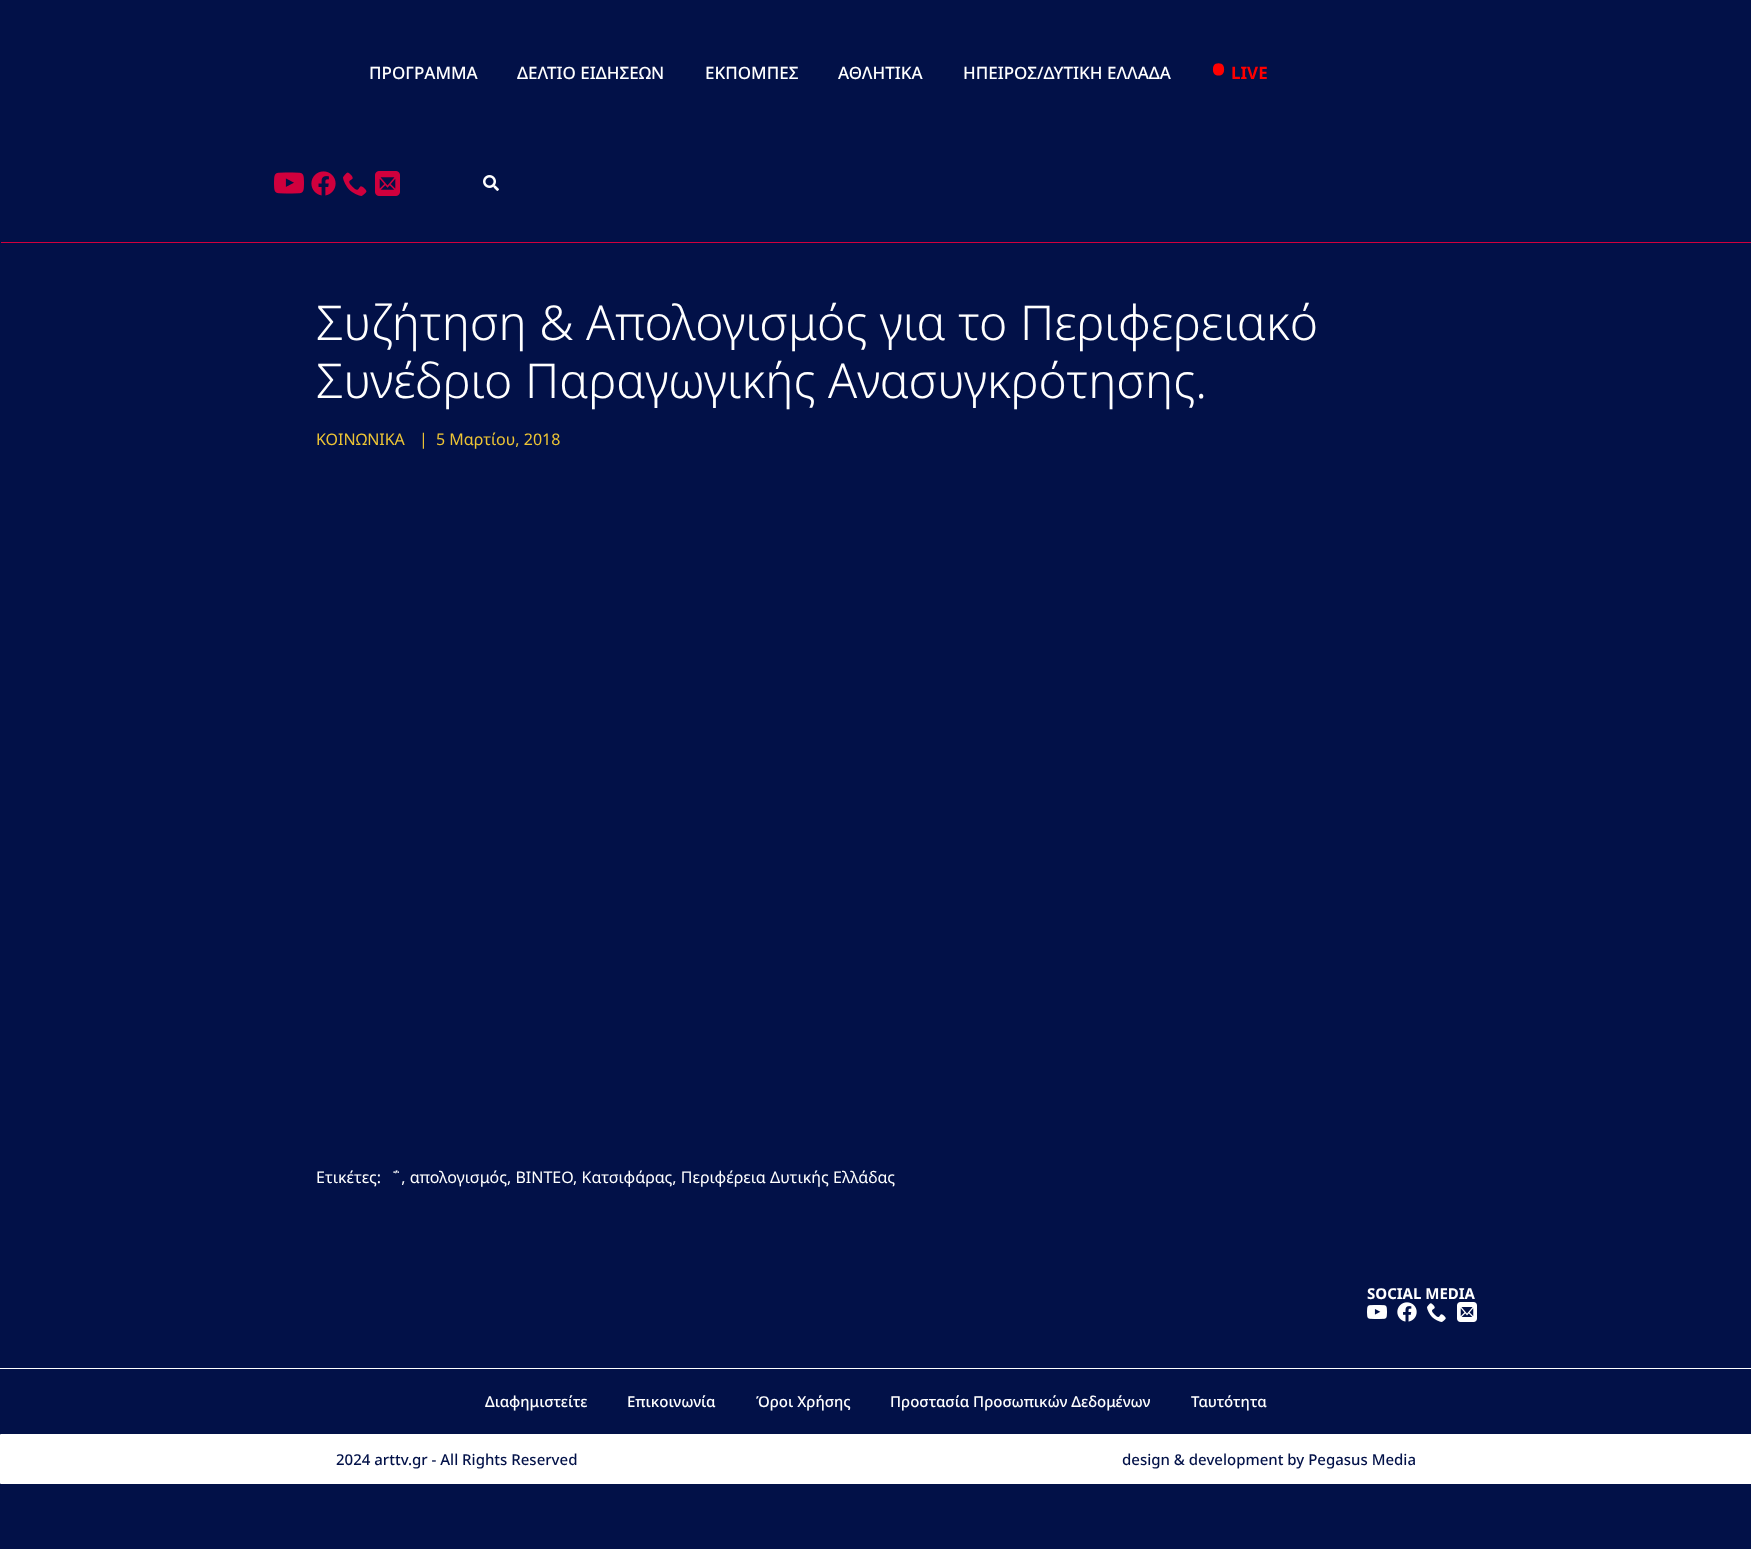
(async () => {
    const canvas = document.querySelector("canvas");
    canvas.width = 1751;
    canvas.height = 1549;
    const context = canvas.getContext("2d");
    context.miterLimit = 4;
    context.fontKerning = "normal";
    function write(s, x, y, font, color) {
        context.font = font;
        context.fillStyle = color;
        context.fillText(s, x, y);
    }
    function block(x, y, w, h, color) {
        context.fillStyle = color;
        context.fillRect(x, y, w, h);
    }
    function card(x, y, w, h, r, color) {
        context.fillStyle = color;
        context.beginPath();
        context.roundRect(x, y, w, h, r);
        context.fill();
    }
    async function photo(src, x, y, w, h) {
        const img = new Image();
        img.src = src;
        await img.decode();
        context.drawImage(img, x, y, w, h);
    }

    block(0, 0, 1751, 1549, "rgb(2, 17, 72)");
    block(1, 242, 1750, 1, "rgb(208, 0, 61)");
    write("ΠΡΟΓΡΑΜΜΑ", 369, 79, "500 17px Noto Sans", "rgb(255, 255, 255)");
    write("ΔΕΛΤΙΟ ΕΙΔΗΣΕΩΝ", 517, 79, "500 17px Noto Sans", "rgb(255, 255, 255)");
    write("ΕΚΠΟΜΠΕΣ", 705, 79, "500 17px Noto Sans", "rgb(255, 255, 255)");
    write("ΑΘΛΗΤΙΚΑ", 838, 79, "500 17px Noto Sans", "rgb(255, 255, 255)");
    write("ΗΠΕΙΡΟΣ/ΔΥΤΙΚΗ ΕΛΛΑΔΑ", 963, 79, "500 17px Noto Sans", "rgb(255, 255, 255)");
    write("•", 1211, 84, "bold 40px Noto Sans", "rgb(255, 0, 0)");
    write("LIVE", 1231, 79, "bold 17px Noto Sans", "rgb(255, 0, 0)");
    await photo("media/1.png", 274, 172, 30, 22);
    await photo("media/2.png", 311, 171, 25, 25);
    await photo("media/3.png", 343, 172, 24, 24);
    await photo("media/4.png", 375, 171, 25, 25);
    await photo("media/5.png", 483, 175, 16, 16);
    write("Συζήτηση & Απολογισμός για το Περιφερειακό", 316, 340, "300 48px Noto Sans", "rgb(255, 255, 255)");
    write("Συνέδριο Παραγωγικής Ανασυγκρότησης.", 316, 398, "300 48px Noto Sans", "rgb(255, 255, 255)");
    write("ΚΟΙΝΩΝΙΚΑ", 316, 445, "16px Noto Sans", "rgb(237, 196, 53)");
    write("|", 419, 445, "16px Noto Sans", "rgb(237, 196, 53)");
    write("5 Μαρτίου, 2018", 436, 445, "16px Noto Sans", "rgb(237, 196, 53)");
    write("Ετικέτες:", 316, 1183, "16px Noto Sans", "rgb(255, 255, 255)");
    write("΅, απολογισμός, ΒΙΝΤΕΟ, Κατσιφάρας, Περιφέρεια Δυτικής Ελλάδας", 391, 1183, "16px Noto Sans", "rgb(255, 255, 255)");
    block(0, 1368, 1751, 1, "rgb(255, 255, 255)");
    write("SOCIAL MEDIA", 1367, 1299, "bold 15px Noto Sans", "rgb(255, 255, 255)");
    await photo("media/6.png", 1367, 1305, 20, 14);
    await photo("media/7.png", 1397, 1302, 20, 20);
    await photo("media/8.png", 1427, 1303, 19, 19);
    await photo("media/9.png", 1457, 1302, 20, 20);
    write("Διαφημιστείτε", 485, 1407, "500 15px Noto Sans", "rgb(255, 255, 255)");
    write("Επικοινωνία", 627, 1407, "500 15px Noto Sans", "rgb(255, 255, 255)");
    write("Όροι Χρήσης", 756, 1407, "500 15px Noto Sans", "rgb(255, 255, 255)");
    write("Προστασία Προσωπικών Δεδομένων", 890, 1407, "500 15px Noto Sans", "rgb(255, 255, 255)");
    write("Ταυτότητα", 1191, 1407, "500 15px Noto Sans", "rgb(255, 255, 255)");
    card(0, 1434, 1751, 50, 1, "rgb(255, 255, 255)");
    block(1750, 1434, 1, 1, "rgb(255, 255, 255)");
    block(1750, 1483, 1, 1, "rgb(255, 255, 255)");
    write("2024 arttv.gr - All Rights Reserved", 336, 1465, "500 15px Noto Sans", "rgb(2, 17, 72)");
    write("design & development by Pegasus Media", 1122, 1465, "500 15px Noto Sans", "rgb(2, 17, 72)");
})();
